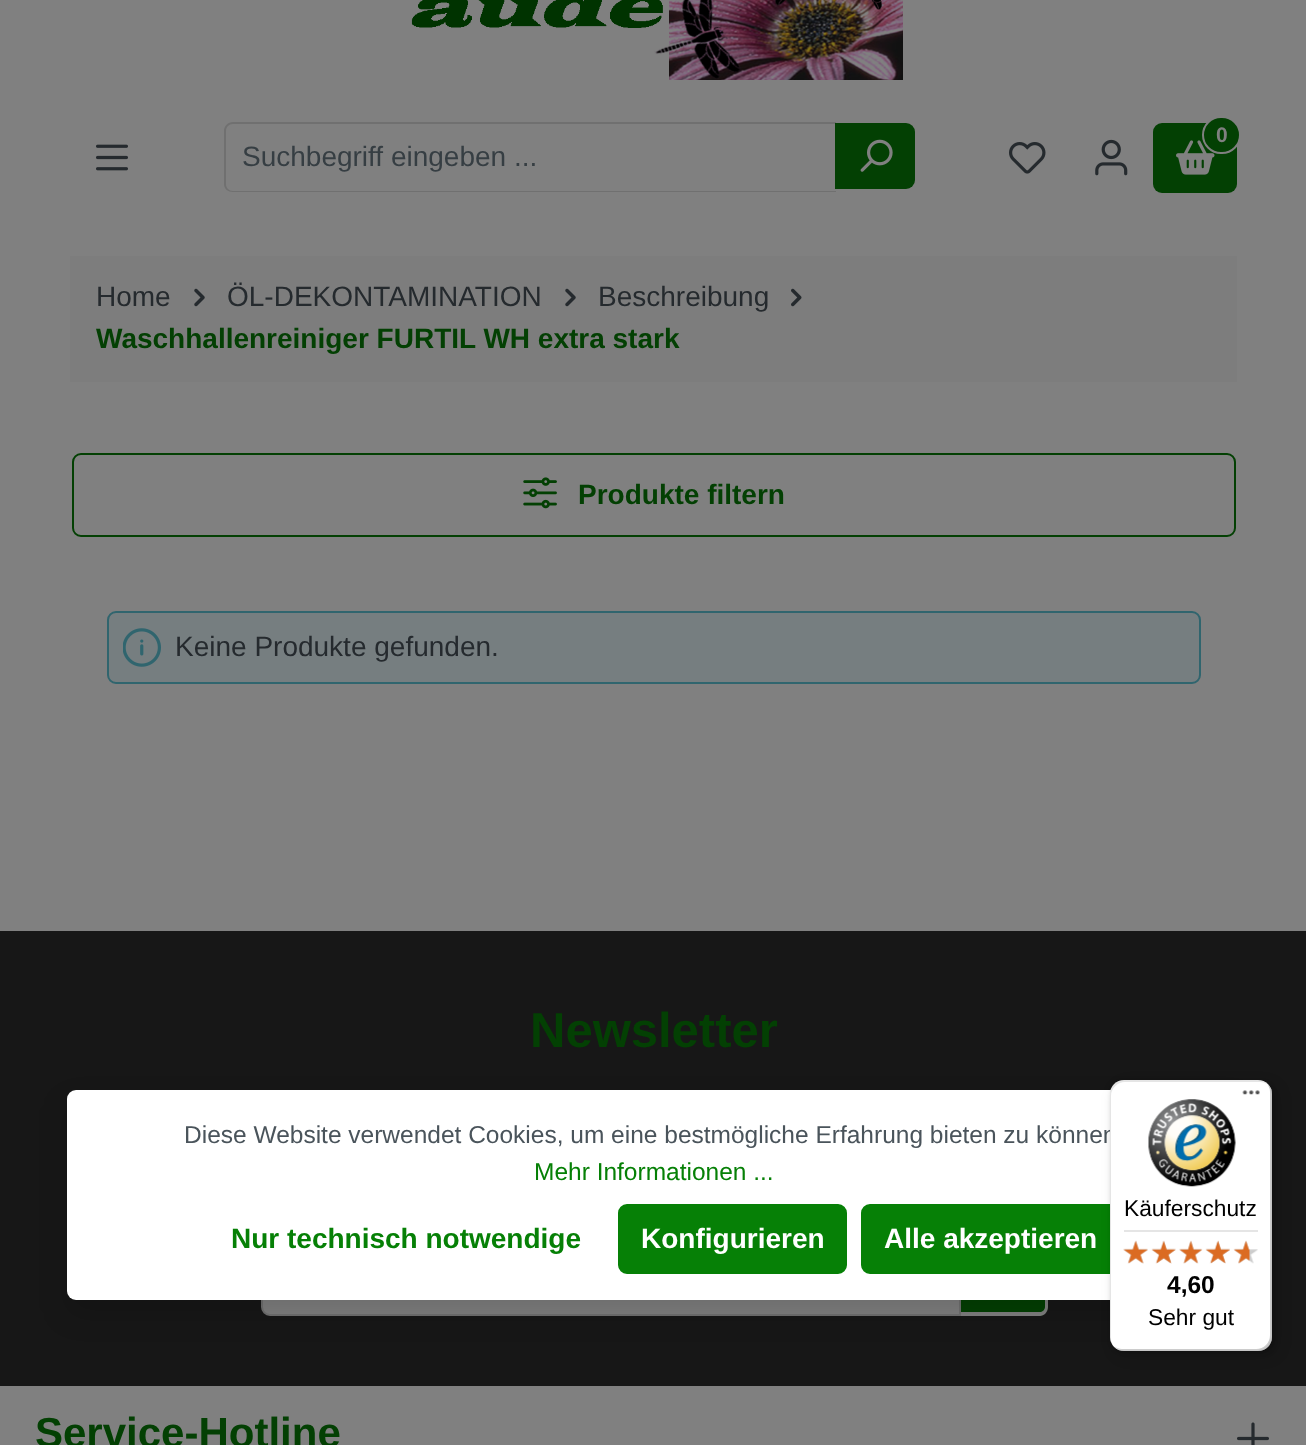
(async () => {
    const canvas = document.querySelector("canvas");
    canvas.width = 1306;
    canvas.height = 1445;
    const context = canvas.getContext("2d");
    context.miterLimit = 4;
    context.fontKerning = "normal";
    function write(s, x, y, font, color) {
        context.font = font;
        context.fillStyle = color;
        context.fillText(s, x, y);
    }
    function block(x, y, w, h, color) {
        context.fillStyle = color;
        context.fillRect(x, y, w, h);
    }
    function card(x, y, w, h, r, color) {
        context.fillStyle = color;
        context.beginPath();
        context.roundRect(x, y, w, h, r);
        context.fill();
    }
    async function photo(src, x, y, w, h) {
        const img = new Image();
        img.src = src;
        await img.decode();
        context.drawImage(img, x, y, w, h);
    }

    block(0, 0, 1306, 1445, "rgb(128, 128, 128)");
    await photo("media/1.png", 411, 0, 492, 80);
    card(1153, 123, 84, 70, 9, "rgb(3, 64, 3)");
    await photo("media/2.png", 1176, 140, 39, 35);
    context.beginPath();
    context.roundRect(1203, 117, 37, 36, 18);
    context.fill();
    context.strokeStyle = "rgb(128, 128, 128)";
    context.lineWidth = 2;
    context.stroke();
    write("0", 1216, 142, "bold 21px Liberation Sans", "rgb(128, 128, 128)");
    await photo("media/3.png", 1009, 142, 37, 32);
    await photo("media/4.png", 1095, 139, 33, 37);
    await photo("media/5.png", 96, 144, 32, 27);
    context.fillStyle = "rgb(112, 112, 112)";
    context.beginPath();
    context.moveTo(233, 122);
    context.lineTo(836, 122);
    context.lineTo(836, 192);
    context.lineTo(233, 192);
    context.bezierCurveTo(228, 192, 224, 189, 224, 184);
    context.lineTo(224, 131);
    context.bezierCurveTo(224, 126, 228, 122, 233, 122);
    context.closePath();
    context.moveTo(233, 124);
    context.lineTo(836, 124);
    context.lineTo(836, 191);
    context.lineTo(233, 191);
    context.bezierCurveTo(229, 191, 226, 188, 226, 184);
    context.lineTo(226, 131);
    context.bezierCurveTo(226, 127, 229, 124, 233, 124);
    context.closePath();
    context.fill("evenodd");
    write("Suchbegriff eingeben ...", 242, 166, "28px Liberation Sans", "rgb(54, 62, 67)");
    context.fillStyle = "rgb(3, 64, 3)";
    context.beginPath();
    context.roundRect(835, 123, 80, 66, [0, 9, 9, 0]);
    context.fill();
    await photo("media/6.png", 860, 139, 33, 33);
    block(70, 256, 1167, 126, "rgb(125, 125, 125)");
    write("Home", 96, 306, "28px Liberation Sans", "rgb(37, 42, 46)");
    await photo("media/7.png", 194, 288, 11, 19);
    write("ÖL-DEKONTAMINATION", 227, 306, "28px Liberation Sans", "rgb(37, 42, 46)");
    await photo("media/7.png", 565, 288, 11, 19);
    write("Beschreibung", 598, 306, "28px Liberation Sans", "rgb(37, 42, 46)");
    await photo("media/8.png", 791, 288, 11, 19);
    write("Waschhallenreiniger FURTIL WH extra stark", 96, 348, "bold 28px Liberation Sans", "rgb(3, 64, 3)");
    context.beginPath();
    context.roundRect(73, 454, 1162, 82, 8);
    context.strokeStyle = "rgb(3, 64, 3)";
    context.stroke();
    await photo("media/9.png", 523, 477, 34, 32);
    write("Produkte filtern", 578, 504, "bold 28px Liberation Sans", "rgb(3, 64, 3)");
    context.fillStyle = "rgb(118, 126, 128)";
    context.beginPath();
    context.roundRect(108, 612, 1092, 71, 8);
    context.fill();
    context.strokeStyle = "rgb(48, 101, 110)";
    context.stroke();
    await photo("media/10.png", 123, 628, 38, 39);
    write("Keine Produkte gefunden.", 175, 656, "28px Liberation Sans", "rgb(37, 42, 46)");
    block(0, 931, 1306, 455, "rgb(23, 23, 23)");
    write("Newsletter", 530, 1047, "bold 49px Liberation Sans", "rgb(3, 64, 3)");
    context.fillStyle = "rgb(128, 128, 128)";
    context.beginPath();
    context.roundRect(262, 1230, 698, 85, [8, 0, 0, 8]);
    context.fill();
    context.strokeStyle = "rgb(112, 112, 112)";
    context.stroke();
    context.fillStyle = "rgb(3, 64, 3)";
    context.beginPath();
    context.roundRect(961, 1229, 87, 87, [0, 9, 9, 0]);
    context.fill();
    context.fillStyle = "rgb(128, 128, 128)";
    context.beginPath();
    context.moveTo(961, 1228);
    context.lineTo(1040, 1228);
    context.bezierCurveTo(1044, 1228, 1048, 1232, 1048, 1237);
    context.lineTo(1048, 1307);
    context.bezierCurveTo(1048, 1312, 1044, 1316, 1040, 1316);
    context.lineTo(961, 1316);
    context.closePath();
    context.moveTo(961, 1232);
    context.lineTo(1040, 1232);
    context.bezierCurveTo(1042, 1232, 1045, 1234, 1045, 1237);
    context.lineTo(1045, 1307);
    context.bezierCurveTo(1045, 1310, 1042, 1312, 1040, 1312);
    context.lineTo(961, 1312);
    context.closePath();
    context.fill("evenodd");
    context.fillStyle = "rgba(0, 0, 0, 0.15)";
    context.filter = "blur(14px)";
    context.beginPath();
    context.roundRect(67, 1104, 1176, 210, 9);
    context.fill();
    context.filter = "none";
    card(67, 1090, 1176, 210, 9, "rgb(255, 255, 255)");
    write("Diese Website verwendet Cookies, um eine bestmögliche Erfahrung bieten zu können", 184, 1143, "24.5px Liberation Sans", "rgb(74, 84, 91)");
    write("Mehr Informationen ...", 534, 1180, "24.5px Liberation Sans", "rgb(6, 128, 6)");
    write("Nur technisch notwendige", 231, 1248, "bold 28px Liberation Sans", "rgb(6, 128, 6)");
    context.beginPath();
    context.roundRect(619, 1205, 227, 68, 8);
    context.fill();
    context.strokeStyle = "rgb(6, 128, 6)";
    context.stroke();
    write("Konfigurieren", 641, 1248, "bold 28px Liberation Sans", "rgb(255, 255, 255)");
    context.fillStyle = "rgb(6, 128, 6)";
    context.beginPath();
    context.roundRect(862, 1205, 257, 68, 8);
    context.fill();
    context.stroke();
    write("Alle akzeptieren", 884, 1248, "bold 28px Liberation Sans", "rgb(255, 255, 255)");
    context.fillStyle = "rgba(0, 0, 0, 0.15)";
    context.filter = "blur(7px)";
    context.beginPath();
    context.roundRect(1115, 1085, 163, 271, 14);
    context.fill();
    context.filter = "none";
    context.filter = "blur(2px)";
    context.beginPath();
    context.roundRect(1111, 1082, 163, 271, 14);
    context.fill();
    context.filter = "none";
    card(1110, 1080, 162, 271, 14, "rgb(255, 255, 255)");
    context.fillStyle = "rgba(0, 0, 0, 0.1)";
    context.beginPath();
    context.moveTo(1125, 1082);
    context.lineTo(1260, 1082);
    context.bezierCurveTo(1263, 1082, 1266, 1083, 1268, 1085);
    context.bezierCurveTo(1266, 1082, 1262, 1080, 1258, 1080);
    context.lineTo(1124, 1080);
    context.bezierCurveTo(1116, 1080, 1110, 1086, 1110, 1094);
    context.lineTo(1110, 1337);
    context.bezierCurveTo(1110, 1340, 1111, 1343, 1113, 1346);
    context.bezierCurveTo(1112, 1344, 1111, 1341, 1111, 1339);
    context.lineTo(1111, 1096);
    context.bezierCurveTo(1111, 1088, 1118, 1082, 1125, 1082);
    context.closePath();
    context.fill();
    context.fillStyle = "rgba(0, 0, 0, 0.2)";
    context.beginPath();
    context.moveTo(1114, 1346);
    context.bezierCurveTo(1116, 1349, 1120, 1351, 1124, 1351);
    context.lineTo(1258, 1351);
    context.bezierCurveTo(1266, 1351, 1272, 1345, 1272, 1337);
    context.lineTo(1272, 1094);
    context.bezierCurveTo(1272, 1090, 1270, 1086, 1267, 1084);
    context.bezierCurveTo(1269, 1086, 1270, 1089, 1270, 1092);
    context.lineTo(1270, 1335);
    context.bezierCurveTo(1270, 1343, 1264, 1349, 1256, 1349);
    context.lineTo(1122, 1349);
    context.bezierCurveTo(1119, 1349, 1116, 1348, 1114, 1346);
    context.closePath();
    context.fill();
    context.fillStyle = "rgba(50, 50, 50, 0.2)";
    context.beginPath();
    context.moveTo(1116, 1349);
    context.bezierCurveTo(1118, 1350, 1121, 1351, 1124, 1351);
    context.lineTo(1258, 1351);
    context.bezierCurveTo(1266, 1351, 1272, 1345, 1272, 1337);
    context.lineTo(1272, 1094);
    context.bezierCurveTo(1272, 1090, 1271, 1087, 1268, 1085);
    context.bezierCurveTo(1270, 1087, 1271, 1090, 1271, 1093);
    context.lineTo(1271, 1336);
    context.bezierCurveTo(1271, 1344, 1265, 1350, 1257, 1350);
    context.lineTo(1122, 1350);
    context.bezierCurveTo(1120, 1350, 1118, 1350, 1116, 1349);
    context.closePath();
    context.fill();
    context.fillStyle = "rgba(255, 255, 255, 0.3)";
    context.beginPath();
    context.moveTo(1115, 1347);
    context.bezierCurveTo(1117, 1350, 1120, 1351, 1124, 1351);
    context.lineTo(1258, 1351);
    context.bezierCurveTo(1266, 1351, 1272, 1345, 1272, 1337);
    context.lineTo(1272, 1094);
    context.bezierCurveTo(1272, 1090, 1271, 1087, 1268, 1085);
    context.bezierCurveTo(1270, 1087, 1271, 1090, 1271, 1093);
    context.lineTo(1271, 1336);
    context.bezierCurveTo(1271, 1344, 1265, 1350, 1257, 1350);
    context.lineTo(1123, 1350);
    context.bezierCurveTo(1120, 1350, 1117, 1349, 1115, 1347);
    context.closePath();
    context.fill();
    await photo("media/11.png", 1242, 1090, 18, 5);
    await photo("media/12.png", 1148, 1099, 88, 88);
    write("Käuferschutz", 1124, 1216, "22.75px Liberation Sans", "rgb(0, 0, 0)");
    block(1124, 1230, 134, 2, "rgb(229, 229, 229)");
    await photo("media/18.png", 1123, 1241, 25, 23);
    await photo("media/13.png", 1123, 1240, 25, 24);
    await photo("media/19.png", 1152, 1241, 24, 23);
    await photo("media/14.png", 1151, 1240, 25, 24);
    await photo("media/20.png", 1179, 1241, 23, 23);
    await photo("media/15.png", 1179, 1240, 24, 24);
    await photo("media/21.png", 1206, 1241, 24, 22);
    await photo("media/16.png", 1205, 1240, 25, 24);
    await photo("media/22.png", 1234, 1241, 24, 23);
    await photo("media/17.png", 1233, 1240, 17, 24);
    write("4,60", 1167, 1293, "bold 24.5px Liberation Sans", "rgb(0, 0, 0)");
    write("Sehr gut", 1148, 1325, "22.75px Liberation Sans", "rgb(0, 0, 0)");
    write("Service-Hotline", 35, 1447, "bold 42px Liberation Sans", "rgb(3, 64, 3)");
    await photo("media/23.png", 1237, 1422, 32, 23);
})();
